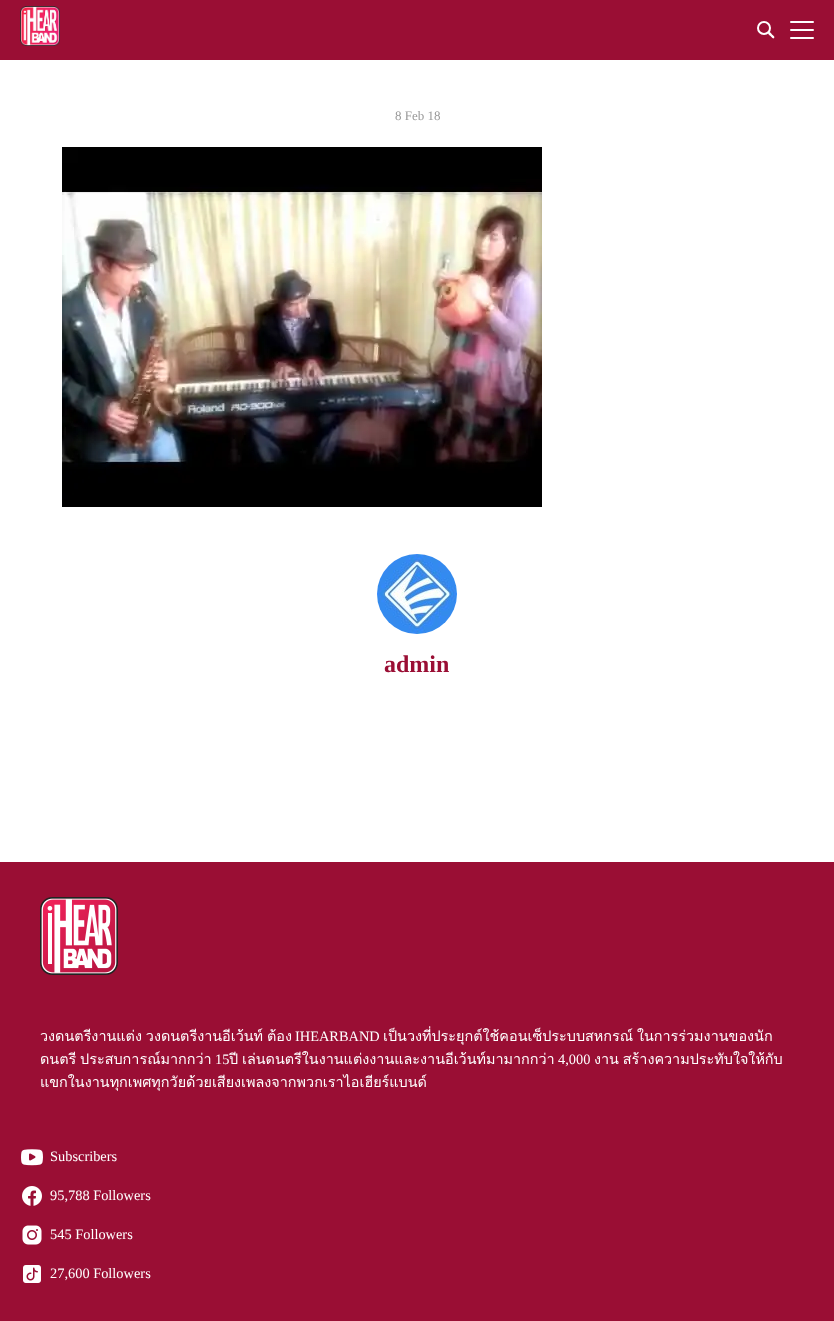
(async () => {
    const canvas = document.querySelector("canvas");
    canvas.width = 834;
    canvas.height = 1321;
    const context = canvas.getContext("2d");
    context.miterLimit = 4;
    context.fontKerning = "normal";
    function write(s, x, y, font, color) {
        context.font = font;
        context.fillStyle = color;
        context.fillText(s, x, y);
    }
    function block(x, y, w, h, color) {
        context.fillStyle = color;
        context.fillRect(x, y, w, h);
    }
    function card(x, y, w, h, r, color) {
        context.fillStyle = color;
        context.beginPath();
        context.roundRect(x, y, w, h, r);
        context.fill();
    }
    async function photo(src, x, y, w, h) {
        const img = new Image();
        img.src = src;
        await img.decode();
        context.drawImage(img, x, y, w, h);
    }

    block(0, 0, 834, 1321, "rgb(255, 255, 255)");
    block(0, 0, 834, 60, "rgb(154, 14, 52)");
    await photo("media/1.png", 20, 6, 40, 40);
    context.fillStyle = "rgb(255, 255, 255)";
    context.beginPath();
    context.moveTo(768.5, 32.5);
    context.bezierCurveTo(769.5, 31, 771.5, 34, 772, 34.5);
    context.bezierCurveTo(772.5, 35, 775.5, 37, 774, 38);
    context.bezierCurveTo(773, 39.5, 771, 36.5, 770.5, 36);
    context.bezierCurveTo(770, 35.5, 767, 33.5, 768.5, 32.5);
    context.closePath();
    context.fill();
    context.beginPath();
    context.arc(764, 28, 6, 0, Math.PI * 2);
    context.strokeStyle = "rgb(255, 255, 255)";
    context.lineWidth = 2;
    context.stroke();
    card(790, 29, 24, 2, 1, "rgb(255, 255, 255)");
    card(790, 21, 24, 2, 1, "rgb(255, 255, 255)");
    card(790, 37, 24, 2, 1, "rgb(255, 255, 255)");
    write("8 Feb 18", 395, 120, "13px Liberation Serif", "rgb(153, 153, 153)");
    await photo("media/2.png", 62, 147, 480, 360);
    await photo("media/3.png", 377, 554, 80, 80);
    write("admin", 384, 672, "bold 24px Liberation Serif", "rgb(154, 14, 52)");
    block(0, 862, 834, 459, "rgb(154, 14, 52)");
    await photo("media/4.png", 40, 897, 78, 78);
    context.wordSpacing = "-1px";
    write("วงดนตรีงานแต่ง วงดนตรีงานอีเว้นท์ ต้อง", 40, 1041, "14.4px Loma", "rgb(255, 255, 255)");
    context.wordSpacing = "0px";
    write("IHEARBAND", 295, 1041, "14.4px Liberation Serif", "rgb(255, 255, 255)");
    context.wordSpacing = "-1px";
    write("เป็นวงที่ประยุกต์ใช้คอนเซ็ประบบสหกรณ์ ในการร่วมงานของนัก", 383, 1041, "14.4px Loma", "rgb(255, 255, 255)");
    write("ดนตรี ประสบการณ์มากกว่า", 40, 1064, "14.4px Loma", "rgb(255, 255, 255)");
    context.wordSpacing = "0px";
    write("15", 215, 1064, "14.4px Liberation Serif", "rgb(255, 255, 255)");
    context.wordSpacing = "-1px";
    write("ปี เล่นดนตรีในงานแต่งงานและงานอีเว้นท์มามากกว่า", 229, 1064, "14.4px Loma", "rgb(255, 255, 255)");
    write("งาน สร้างความประทับใจให้กับ", 594, 1064, "14.4px Loma", "rgb(255, 255, 255)");
    context.wordSpacing = "0px";
    write("4,000", 558, 1064, "14.4px Liberation Serif", "rgb(255, 255, 255)");
    write("แขกในงานทุกเพศทุกวัยด้วยเสียงเพลงจากพวกเราไอเฮียร์แบนด์", 40, 1087, "14.4px Loma", "rgb(255, 255, 255)");
    await photo("media/5.png", 21, 1149, 22, 17);
    write("Subscribers", 50, 1161, "14.4px Liberation Serif", "rgb(255, 255, 255)");
    await photo("media/6.png", 22, 1186, 20, 20);
    write("95,788 Followers", 50, 1200, "14.4px Liberation Serif", "rgb(255, 255, 255)");
    await photo("media/7.png", 22, 1225, 20, 20);
    write("545 Followers", 50, 1239, "14.4px Liberation Serif", "rgb(255, 255, 255)");
    await photo("media/8.png", 23, 1265, 18, 18);
    write("27,600 Followers", 50, 1278, "14.4px Liberation Serif", "rgb(255, 255, 255)");
})();
